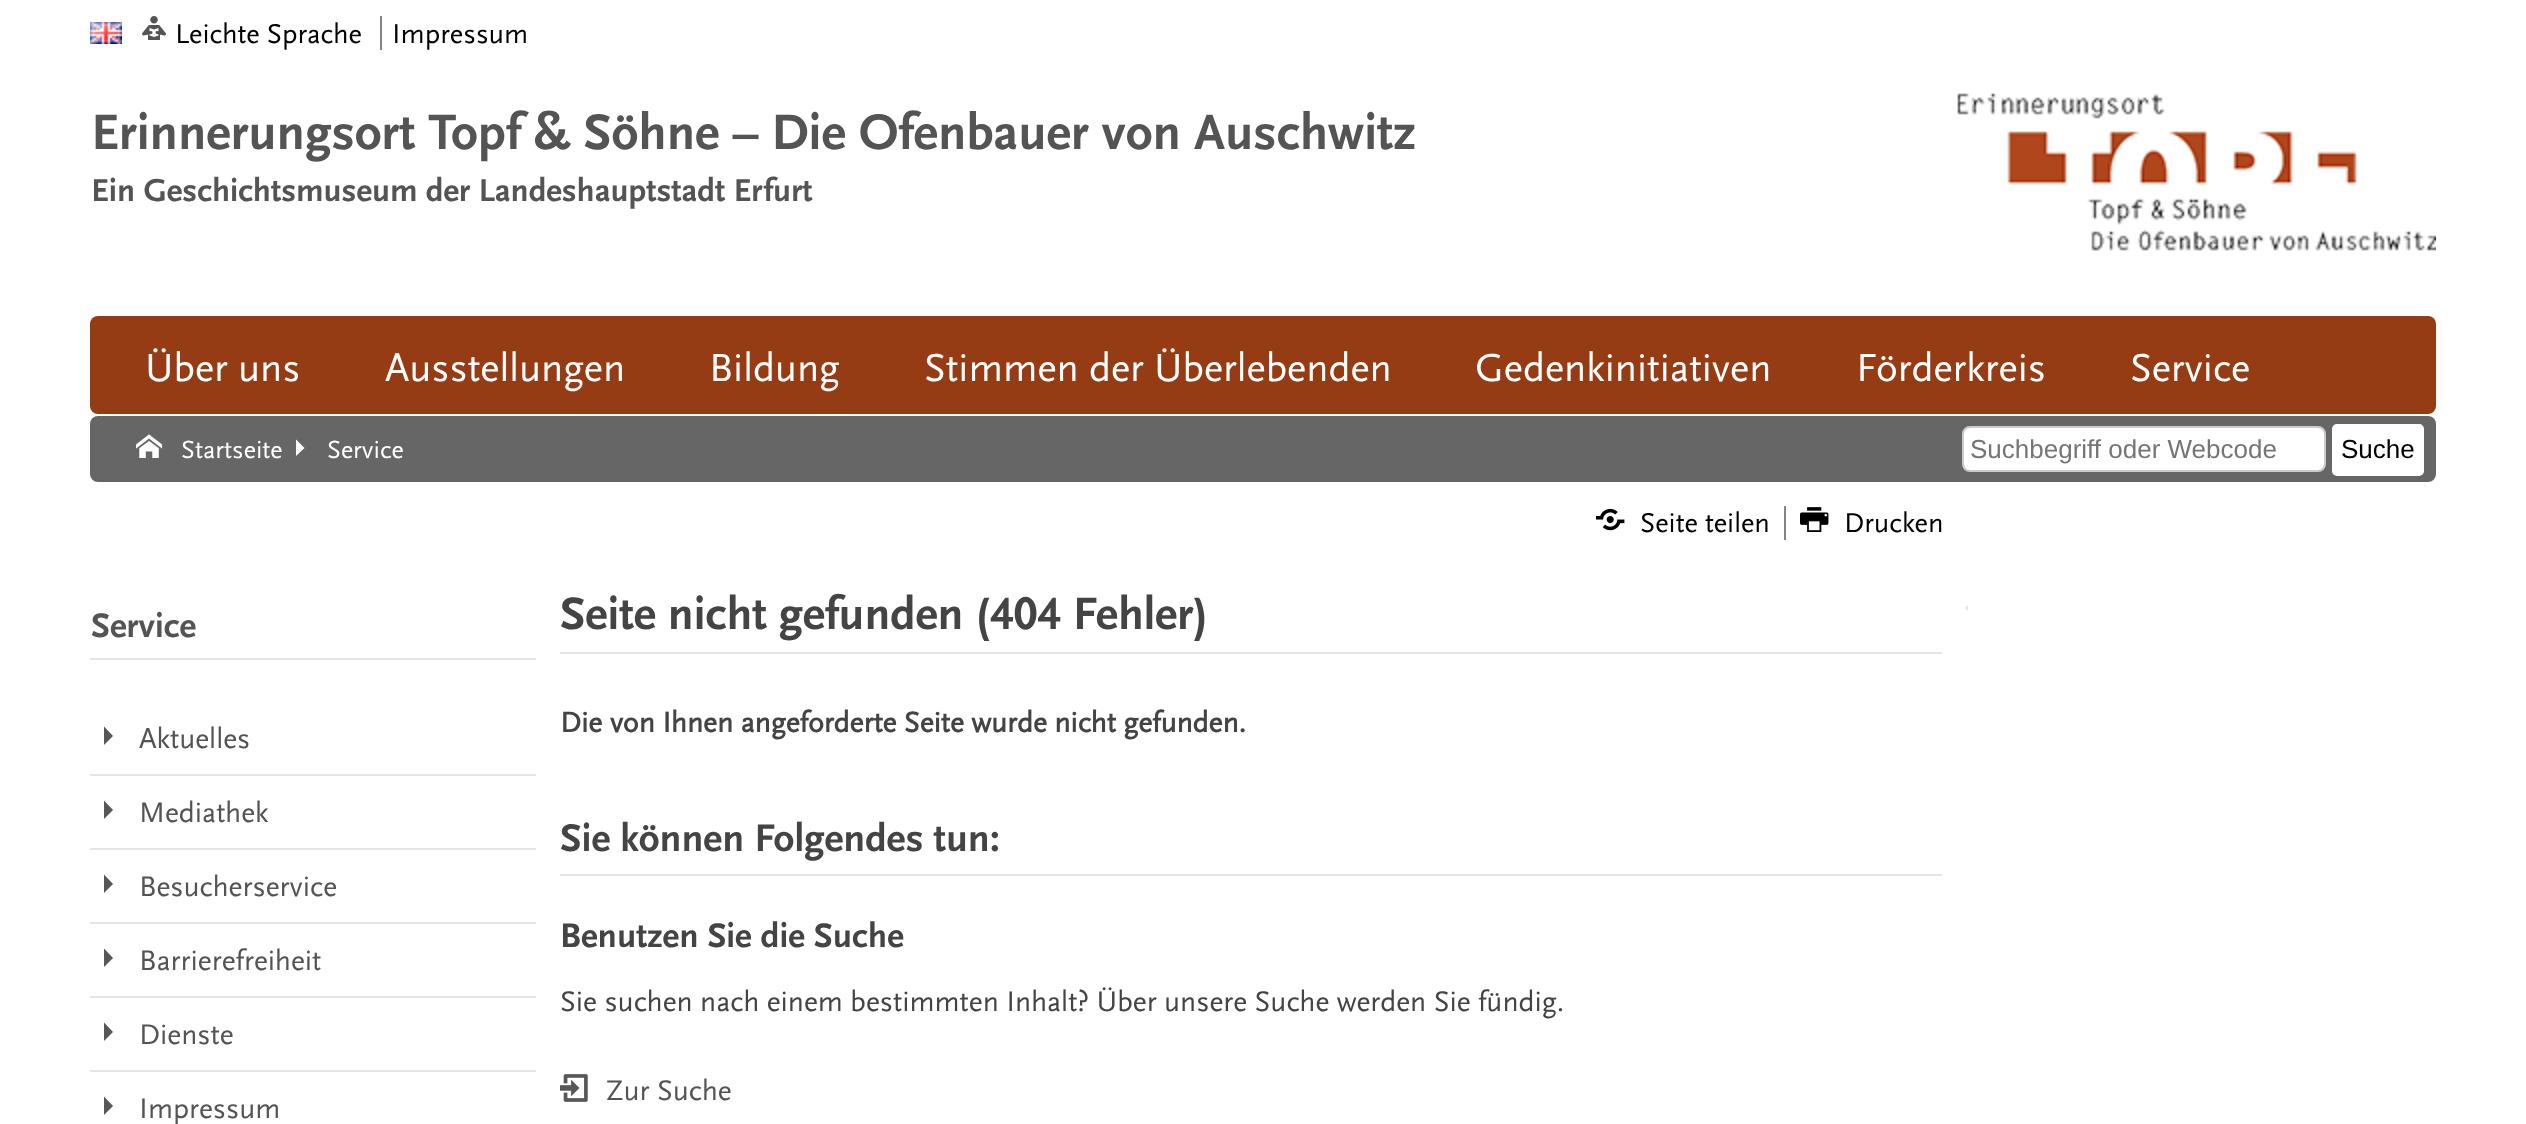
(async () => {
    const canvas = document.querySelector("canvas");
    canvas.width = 2526;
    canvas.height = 1124;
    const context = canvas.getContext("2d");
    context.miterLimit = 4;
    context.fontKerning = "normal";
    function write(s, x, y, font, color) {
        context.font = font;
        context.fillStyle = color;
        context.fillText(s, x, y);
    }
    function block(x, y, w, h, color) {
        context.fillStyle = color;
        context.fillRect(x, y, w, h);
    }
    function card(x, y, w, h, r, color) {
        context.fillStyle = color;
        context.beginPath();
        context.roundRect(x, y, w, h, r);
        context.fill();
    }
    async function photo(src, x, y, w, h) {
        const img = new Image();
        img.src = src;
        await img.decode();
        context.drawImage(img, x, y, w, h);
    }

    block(0, 0, 2526, 1124, "rgb(255, 255, 255)");
    await photo("media/1.png", 90, 22, 32, 22);
    await photo("media/2.png", 142, 16, 24, 24);
    write("Leichte Sprache", 175, 43, "28.5px 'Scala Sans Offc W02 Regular'", "rgb(0, 0, 0)");
    block(380, 16, 2, 34, "rgb(132, 132, 132)");
    write("Impressum", 392, 43, "28.5px 'Scala Sans Offc W02 Regular'", "rgb(0, 0, 0)");
    write("Erinnerungsort Topf & Söhne – Die Ofenbauer von Auschwitz", 91, 149, "bold 52.1px 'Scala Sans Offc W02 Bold'", "rgb(84, 84, 84)");
    write("Ein Geschichtsmuseum der Landeshauptstadt Erfurt", 91, 201, "bold 33.15px 'Scala Sans Offc W02 Bold'", "rgb(84, 84, 84)");
    await photo("media/3.png", 1957, 93, 479, 158);
    card(90, 316, 2346, 98, 8, "rgb(150, 60, 20)");
    write("Über uns", 145, 381, "40.75px 'Scala Sans Offc W02 Regular'", "rgb(255, 255, 255)");
    write("Ausstellungen", 385, 381, "40.75px 'Scala Sans Offc W02 Regular'", "rgb(255, 255, 255)");
    write("Bildung", 709, 381, "40.75px 'Scala Sans Offc W02 Regular'", "rgb(255, 255, 255)");
    write("Stimmen der Überlebenden", 924, 381, "40.75px 'Scala Sans Offc W02 Regular'", "rgb(255, 255, 255)");
    write("Gedenkinitiativen", 1475, 381, "40.75px 'Scala Sans Offc W02 Regular'", "rgb(255, 255, 255)");
    write("Förderkreis", 1856, 381, "40.75px 'Scala Sans Offc W02 Regular'", "rgb(255, 255, 255)");
    write("Service", 2130, 381, "40.75px 'Scala Sans Offc W02 Regular'", "rgb(255, 255, 255)");
    card(90, 416, 2346, 66, 8, "rgb(102, 102, 102)");
    await photo("media/4.png", 136, 434, 27, 24);
    write("Startseite", 181, 458, "26px 'Scala Sans Offc W02 Regular'", "rgb(255, 255, 255)");
    context.beginPath();
    context.moveTo(296, 456);
    context.lineTo(296, 439.5);
    context.lineTo(304.5, 448);
    context.closePath();
    context.fill();
    write("Service", 327, 458, "26px 'Scala Sans Offc W02 Regular'", "rgb(255, 255, 255)");
    context.beginPath();
    context.roundRect(1963, 427, 362, 44, 7);
    context.fill();
    context.strokeStyle = "rgb(204, 204, 204)";
    context.lineWidth = 2;
    context.stroke();
    write("Suchbegriff oder Webcode", 1970, 458, "26px Liberation Sans", "rgb(117, 117, 117)");
    card(2332, 424, 92, 52, 5, "rgb(255, 255, 255)");
    write("Suche", 2341, 458, "26px Liberation Sans", "rgb(0, 0, 0)");
    await photo("media/5.png", 1596, 508, 29, 23);
    write("Seite teilen", 1640, 532, "28.5px 'Scala Sans Offc W02 Regular'", "rgb(0, 0, 0)");
    block(1784, 506, 2, 34, "rgb(132, 132, 132)");
    await photo("media/6.png", 1800, 507, 29, 25);
    write("Drucken", 1844, 532, "28.5px 'Scala Sans Offc W02 Regular'", "rgb(0, 0, 0)");
    block(560, 652, 1382, 2, "rgb(229, 229, 229)");
    write("Seite nicht gefunden (404 Fehler)", 560, 629, "bold 47.4px 'Scala Sans Offc W02 Bold'", "rgb(68, 68, 68)");
    write("Die von Ihnen angeforderte Seite wurde nicht gefunden.", 560, 732, "bold 29.6px 'Scala Sans Offc W02 Regular'", "rgb(68, 68, 68)");
    block(560, 874, 1382, 2, "rgb(229, 229, 229)");
    write("Sie können Folgendes tun:", 560, 851, "bold 40.25px 'Scala Sans Offc W02 Bold'", "rgb(68, 68, 68)");
    write("Benutzen Sie die Suche", 560, 947, "bold 35.5px 'Scala Sans Offc W02 Bold'", "rgb(68, 68, 68)");
    write("Sie suchen nach einem bestimmten Inhalt? Über unsere Suche werden Sie fündig.", 560, 1011, "29.6px 'Scala Sans Offc W02 Regular'", "rgb(68, 68, 68)");
    await photo("media/7.png", 560, 1074, 28, 28);
    write("Zur Suche", 606, 1100, "29.6px 'Scala Sans Offc W02 Regular'", "rgb(84, 84, 84)");
    block(1966, 606, 2, 4, "rgb(229, 229, 229)");
    block(90, 658, 446, 2, "rgb(229, 229, 229)");
    write("Service", 91, 637, "bold 35.5px 'Scala Sans Offc W02 Bold'", "rgb(84, 84, 84)");
    block(90, 774, 446, 2, "rgb(229, 229, 229)");
    context.fillStyle = "rgb(87, 87, 87)";
    context.beginPath();
    context.moveTo(104, 745);
    context.lineTo(104, 726.5);
    context.lineTo(113, 736);
    context.closePath();
    context.fill();
    write("Aktuelles", 139, 748, "29.6px 'Scala Sans Offc W02 Regular'", "rgb(84, 84, 84)");
    block(90, 848, 446, 2, "rgb(229, 229, 229)");
    context.fillStyle = "rgb(87, 87, 87)";
    context.beginPath();
    context.moveTo(104, 819);
    context.lineTo(104, 800.5);
    context.lineTo(113, 810);
    context.closePath();
    context.fill();
    write("Mediathek", 139, 822, "29.6px 'Scala Sans Offc W02 Regular'", "rgb(84, 84, 84)");
    block(90, 922, 446, 2, "rgb(229, 229, 229)");
    context.fillStyle = "rgb(87, 87, 87)";
    context.beginPath();
    context.moveTo(104, 893);
    context.lineTo(104, 874.5);
    context.lineTo(113, 884);
    context.closePath();
    context.fill();
    write("Besucherservice", 139, 896, "29.6px 'Scala Sans Offc W02 Regular'", "rgb(84, 84, 84)");
    block(90, 996, 446, 2, "rgb(229, 229, 229)");
    context.fillStyle = "rgb(87, 87, 87)";
    context.beginPath();
    context.moveTo(104, 967);
    context.lineTo(104, 948.5);
    context.lineTo(113, 958);
    context.closePath();
    context.fill();
    write("Barrierefreiheit", 139, 970, "29.6px 'Scala Sans Offc W02 Regular'", "rgb(84, 84, 84)");
    block(90, 1070, 446, 2, "rgb(229, 229, 229)");
    context.fillStyle = "rgb(87, 87, 87)";
    context.beginPath();
    context.moveTo(104, 1041);
    context.lineTo(104, 1022.5);
    context.lineTo(113, 1032);
    context.closePath();
    context.fill();
    write("Dienste", 139, 1044, "29.6px 'Scala Sans Offc W02 Regular'", "rgb(84, 84, 84)");
    context.fillStyle = "rgb(87, 87, 87)";
    context.beginPath();
    context.moveTo(104, 1115);
    context.lineTo(104, 1096.5);
    context.lineTo(113, 1106);
    context.closePath();
    context.fill();
    write("Impressum", 139, 1118, "29.6px 'Scala Sans Offc W02 Regular'", "rgb(84, 84, 84)");
})();
